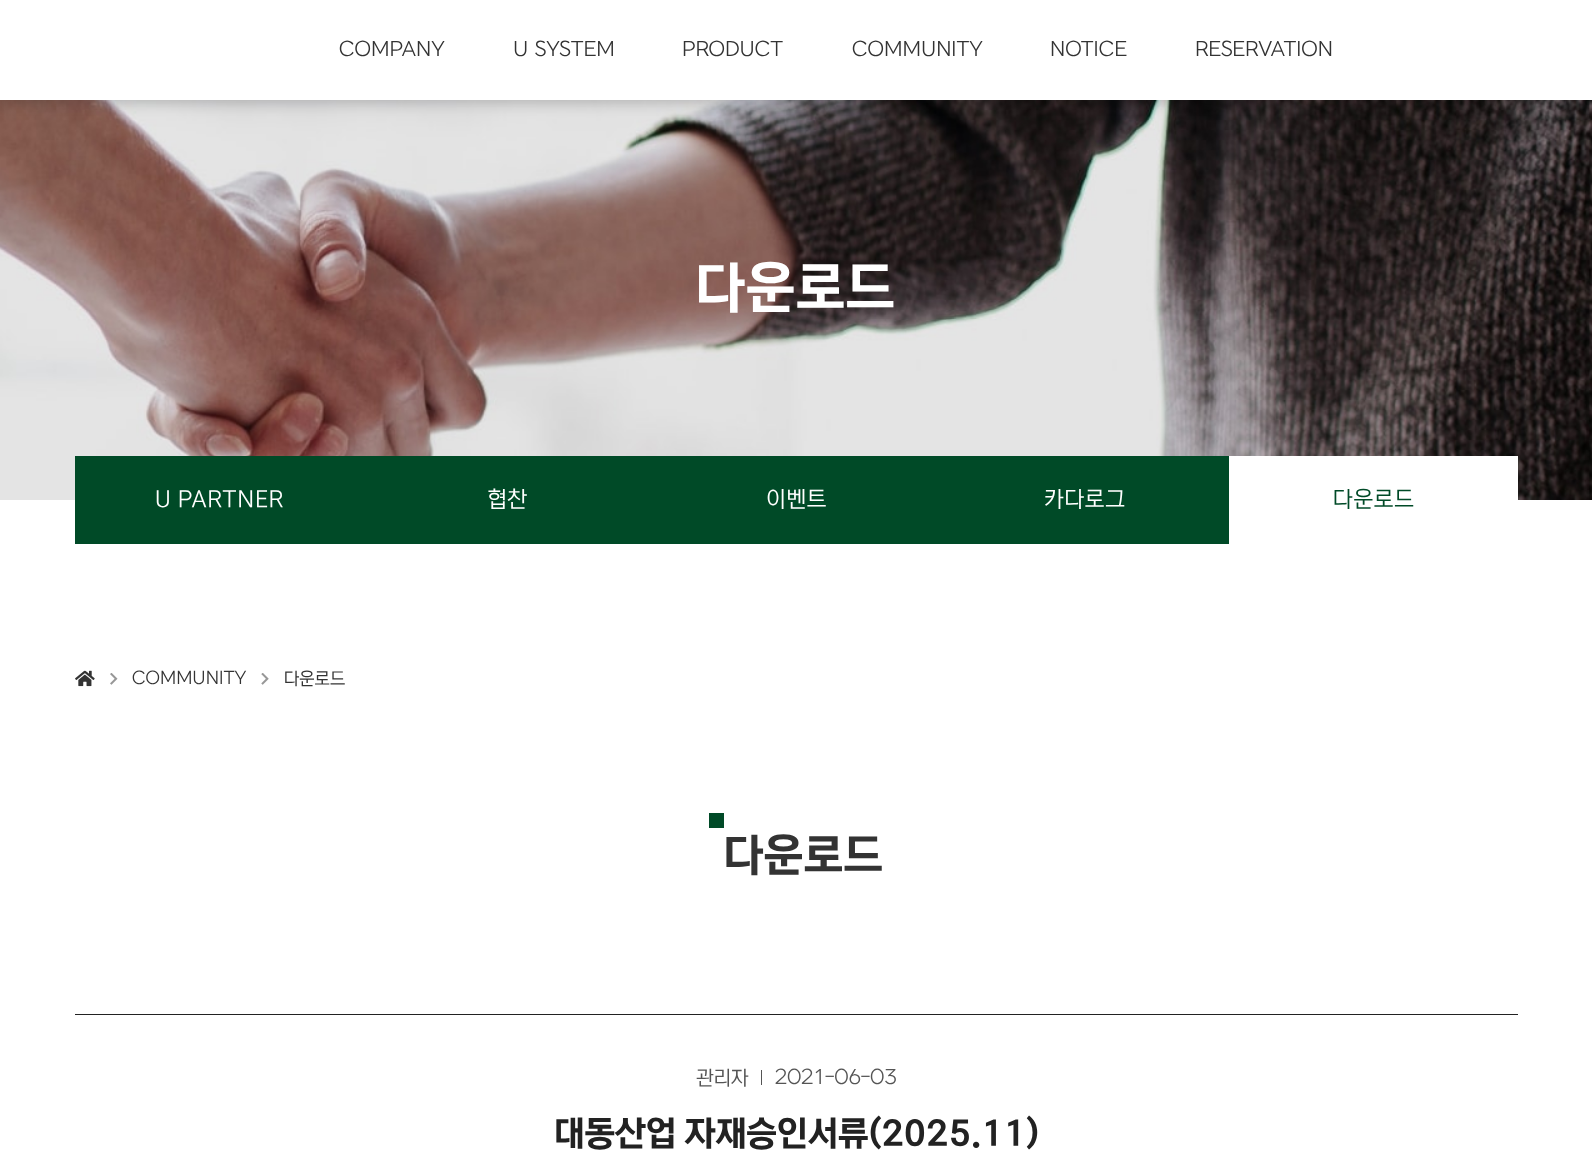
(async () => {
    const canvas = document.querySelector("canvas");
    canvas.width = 1592;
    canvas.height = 1165;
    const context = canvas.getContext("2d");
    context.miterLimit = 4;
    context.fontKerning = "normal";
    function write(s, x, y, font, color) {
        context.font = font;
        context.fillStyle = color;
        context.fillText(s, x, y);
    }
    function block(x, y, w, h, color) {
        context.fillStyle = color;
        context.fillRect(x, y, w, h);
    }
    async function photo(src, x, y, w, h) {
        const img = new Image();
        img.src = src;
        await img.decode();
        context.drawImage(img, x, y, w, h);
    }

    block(0, 0, 1592, 1165, "rgb(255, 255, 255)");
    await photo("media/1.png", 0, 100, 1592, 400);
    context.fillStyle = "rgba(0, 0, 0, 0.16)";
    context.filter = "blur(6px)";
    context.beginPath();
    context.rect(0, 4, 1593, 100);
    context.fill();
    context.filter = "none";
    block(0, 0, 1592, 100, "rgb(255, 255, 255)");
    write("COMPANY", 339, 56, "20px 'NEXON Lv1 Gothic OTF'", "rgb(51, 51, 51)");
    write("U SYSTEM", 513, 56, "20px 'NEXON Lv1 Gothic OTF'", "rgb(51, 51, 51)");
    write("PRODUCT", 682, 56, "20px 'NEXON Lv1 Gothic OTF'", "rgb(51, 51, 51)");
    write("COMMUNITY", 852, 56, "20px 'NEXON Lv1 Gothic OTF'", "rgb(51, 51, 51)");
    write("NOTICE", 1050, 56, "20px 'NEXON Lv1 Gothic OTF'", "rgb(51, 51, 51)");
    write("RESERVATION", 1195, 56, "20px 'NEXON Lv1 Gothic OTF'", "rgb(51, 51, 51)");
    context.letterSpacing = "1px";
    write("다운로드", 696, 305, "bold 56px 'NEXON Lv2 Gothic'", "rgb(255, 255, 255)");
    block(75, 456, 1154, 88, "rgb(0, 74, 39)");
    context.letterSpacing = "0.75px";
    write("U PARTNER", 155, 506, "22.5px 'NEXON Lv2 Gothic'", "rgb(255, 255, 255)");
    write("협찬", 487, 506, "22.5px 'NEXON Lv2 Gothic'", "rgb(255, 255, 255)");
    write("이벤트", 766, 506, "22.5px 'NEXON Lv2 Gothic'", "rgb(255, 255, 255)");
    write("카다로그", 1044, 506, "22.5px 'NEXON Lv2 Gothic'", "rgb(255, 255, 255)");
    block(1229, 456, 289, 44, "rgb(255, 255, 255)");
    write("다운로드", 1333, 506, "22.5px 'NEXON Lv2 Gothic'", "rgb(0, 74, 39)");
    await photo("media/2.png", 75, 670, 20, 17);
    await photo("media/3.png", 110, 673, 8, 12);
    context.letterSpacing = "0px";
    write("COMMUNITY", 132, 684, "17.5px 'NEXON Lv1 Gothic OTF'", "rgb(51, 51, 51)");
    await photo("media/4.png", 261, 673, 8, 12);
    write("다운로드", 284, 684, "17.5px 'NEXON Lv2 Gothic'", "rgb(51, 51, 51)");
    block(709, 813, 15, 15, "rgb(0, 74, 39)");
    context.letterSpacing = "0.5px";
    write("다운로드", 724, 869, "bold 45px 'NEXON Lv2 Gothic'", "rgb(51, 51, 51)");
    block(75, 1014, 1443, 1, "rgb(34, 34, 34)");
    context.letterSpacing = "0px";
    write("관리자", 696, 1084, "20px 'NEXON Lv2 Gothic'", "rgb(85, 85, 85)");
    block(761, 1070, 1, 15, "rgb(85, 85, 85)");
    write("2021-06-03", 775, 1084, "20px 'NEXON Lv1 Gothic OTF'", "rgb(85, 85, 85)");
    write("대동산업 자재승인서류(2025.11)", 554, 1144, "bold 35px 'NEXON Lv2 Gothic'", "rgb(34, 34, 34)");
})();
